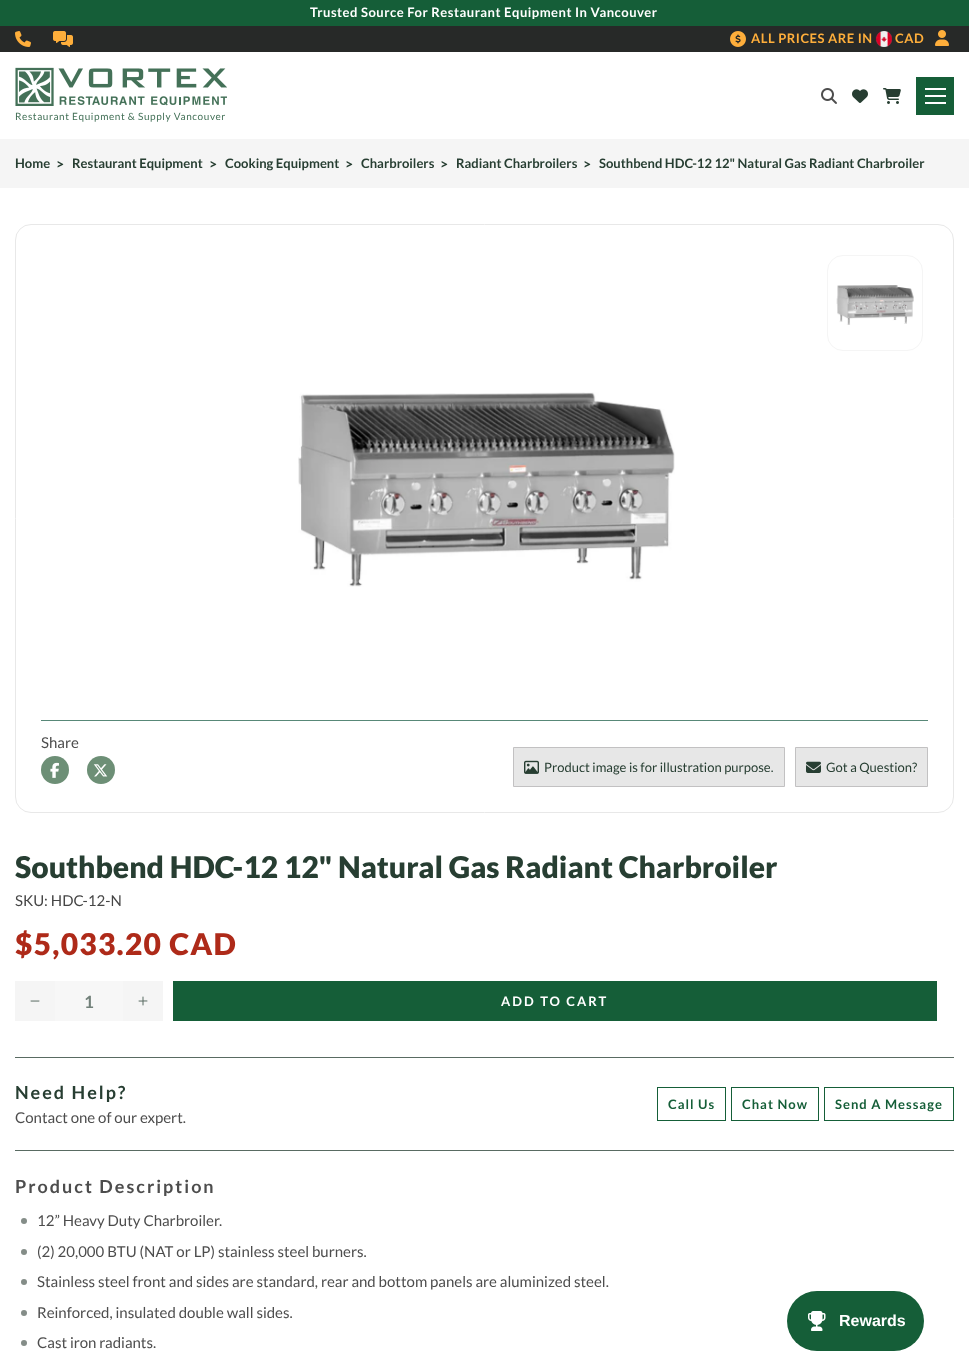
(async () => {
    const canvas = document.querySelector("canvas");
    canvas.width = 969;
    canvas.height = 1361;
    const context = canvas.getContext("2d");
    context.miterLimit = 4;
    context.fontKerning = "normal";
    function write(s, x, y, font, color) {
        context.font = font;
        context.fillStyle = color;
        context.fillText(s, x, y);
    }
    function block(x, y, w, h, color) {
        context.fillStyle = color;
        context.fillRect(x, y, w, h);
    }
    function card(x, y, w, h, r, color) {
        context.fillStyle = color;
        context.beginPath();
        context.roundRect(x, y, w, h, r);
        context.fill();
    }
    async function photo(src, x, y, w, h) {
        const img = new Image();
        img.src = src;
        await img.decode();
        context.drawImage(img, x, y, w, h);
    }

    block(0, 0, 969, 1361, "rgb(255, 255, 255)");
    block(55, 981, 68, 40, "rgb(247, 247, 247)");
    block(0, 139, 969, 49, "rgb(245, 245, 245)");
    context.save();
    context.beginPath();
    context.rect(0, 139, 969, 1);
    context.clip();
    context.fillStyle = "rgba(0, 0, 0, 0.5)";
    context.filter = "blur(0.5px)";
    context.beginPath();
    context.rect(0, 0, 969, 139);
    context.fill();
    context.filter = "none";
    context.restore();
    block(0, 0, 969, 26, "rgb(21, 94, 56)");
    context.save();
    context.beginPath();
    context.rect(19, 5, 929, 14);
    context.clip();
    context.letterSpacing = "0.5px";
    write("Trusted Source For Restaurant Equipment In Vancouver", 310, 17, "bold 13px Lato", "rgb(255, 255, 255)");
    context.restore();
    block(0, 26, 969, 26, "rgb(39, 41, 40)");
    await photo("media/1.png", 15, 31, 16, 16);
    await photo("media/2.png", 53, 31, 20, 16);
    await photo("media/3.png", 730, 31, 16, 16);
    context.letterSpacing = "0.5px";
    write("ALL PRICES ARE IN", 751, 43, "bold 13px Lato", "rgb(254, 174, 59)");
    await photo("media/4.png", 875, 31, 17, 16);
    write("CAD", 895, 43, "bold 13px Lato", "rgb(254, 174, 59)");
    await photo("media/5.png", 935, 30, 14, 16);
    await photo("media/6.png", 821, 88, 16, 16);
    await photo("media/7.png", 852, 89, 16, 14);
    await photo("media/8.png", 883, 88, 18, 16);
    block(916, 77, 38, 38, "rgb(21, 94, 56)");
    block(925, 95, 21, 2, "rgb(255, 255, 255)");
    block(925, 88, 21, 2, "rgb(255, 255, 255)");
    block(925, 102, 21, 2, "rgb(255, 255, 255)");
    await photo("media/9.png", 15, 67, 212, 39);
    context.letterSpacing = "0.6px";
    write("Restaurant Equipment & Supply Vancouver", 15, 120, "10px Lato", "rgb(68, 113, 88)");
    context.letterSpacing = "0px";
    write("Home", 15, 168, "bold 13px Lato", "rgb(39, 62, 50)");
    write(">", 56, 169, "bold 14px Lato", "rgb(39, 62, 50)");
    write("Restaurant Equipment", 72, 168, "bold 13px Lato", "rgb(39, 62, 50)");
    write(">", 209, 169, "bold 14px Lato", "rgb(39, 62, 50)");
    write("Cooking Equipment", 225, 168, "bold 13px Lato", "rgb(39, 62, 50)");
    write(">", 345, 169, "bold 14px Lato", "rgb(39, 62, 50)");
    write("Charbroilers", 361, 168, "bold 13px Lato", "rgb(39, 62, 50)");
    write(">", 440, 169, "bold 14px Lato", "rgb(39, 62, 50)");
    write("Radiant Charbroilers", 456, 168, "bold 13px Lato", "rgb(39, 62, 50)");
    write(">", 583, 169, "bold 14px Lato", "rgb(39, 62, 50)");
    write("Southbend HDC-12 12\" Natural Gas Radiant Charbroiler", 599, 168, "bold 13px Lato", "rgb(39, 62, 50)");
    context.beginPath();
    context.roundRect(15.5, 224.5, 938, 588, 15.5);
    context.strokeStyle = "rgb(232, 232, 232)";
    context.stroke();
    context.beginPath();
    context.roundRect(827.5, 255.5, 95, 95, 15.5);
    context.strokeStyle = "rgb(245, 245, 245)";
    context.stroke();
    await photo("media/10.png", 836, 285, 78, 40);
    await photo("media/11.png", 298, 392, 377, 195);
    block(41, 720, 887, 1, "rgb(88, 136, 120)");
    write("Share", 41, 748, "15px Lato", "rgb(77, 77, 77)");
    context.fillStyle = "rgb(109, 143, 118)";
    context.beginPath();
    context.arc(55, 770, 14, 0, Math.PI * 2);
    context.fill();
    await photo("media/12.png", 50, 762, 9, 16);
    context.beginPath();
    context.arc(101, 770, 14, 0, Math.PI * 2);
    context.fill();
    await photo("media/13.png", 93, 764, 15, 13);
    context.fillStyle = "rgb(231, 231, 231)";
    context.beginPath();
    context.rect(513.5, 747.5, 271, 39);
    context.fill();
    context.strokeStyle = "rgb(194, 193, 194)";
    context.stroke();
    await photo("media/14.png", 524, 760, 15, 14);
    write("Product image is for illustration purpose.", 544, 772, "13px Lato", "rgb(39, 62, 50)");
    context.fillStyle = "rgb(231, 231, 231)";
    context.beginPath();
    context.rect(795.5, 747.5, 132, 39);
    context.fill();
    context.stroke();
    await photo("media/15.png", 806, 761, 15, 12);
    write("Got a Question?", 826, 772, "13px Lato", "rgb(39, 62, 50)");
    write("Southbend HDC-12 12\" Natural Gas Radiant Charbroiler", 15, 878, "900 30px Lato", "rgb(39, 62, 50)");
    write("SKU: HDC-12-N", 15, 906, "15px Lato", "rgb(70, 70, 70)");
    context.letterSpacing = "1.25px";
    write("$5,033.20 CAD", 15, 955, "900 30px Lato", "rgb(174, 42, 25)");
    block(15, 981, 40, 40, "rgb(245, 245, 245)");
    await photo("media/16.png", 30, 1000, 10, 2);
    context.letterSpacing = "0px";
    write("1", 84, 1008, "bold 17px Lato", "rgb(114, 129, 122)");
    block(123, 981, 40, 40, "rgb(245, 245, 245)");
    await photo("media/17.png", 138, 996, 10, 10);
    block(173, 981, 764, 40, "rgb(21, 94, 56)");
    context.letterSpacing = "2px";
    write("ADD TO CART", 501, 1006, "bold 13px Lato", "rgb(255, 255, 255)");
    block(15, 1057, 939, 1, "rgb(89, 107, 98)");
    block(15, 1150, 939, 1, "rgb(89, 107, 98)");
    write("Need Help?", 15, 1099, "bold 18px Lato", "rgb(39, 62, 50)");
    context.letterSpacing = "0px";
    write("Contact one of our expert.", 15, 1123, "15px Lato", "rgb(77, 77, 77)");
    context.strokeStyle = "rgb(21, 94, 56)";
    context.strokeRect(657.5, 1087.5, 68, 33);
    context.letterSpacing = "1px";
    write("Call Us", 668, 1109, "bold 13px Lato", "rgb(21, 94, 56)");
    context.strokeRect(731.5, 1087.5, 87, 33);
    write("Chat Now", 742, 1109, "bold 13px Lato", "rgb(21, 94, 56)");
    context.strokeRect(824.5, 1087.5, 129, 33);
    write("Send A Message", 835, 1109, "bold 13px Lato", "rgb(21, 94, 56)");
    context.letterSpacing = "2px";
    write("Product Description", 15, 1193, "bold 18px Lato", "rgb(77, 77, 77)");
    context.fillStyle = "rgb(132, 141, 136)";
    context.beginPath();
    context.arc(24, 1221, 3, 0, Math.PI * 2);
    context.fill();
    context.letterSpacing = "0px";
    write("12” Heavy Duty Charbroiler.", 37, 1226, "15px Lato", "rgb(77, 77, 77)");
    context.fillStyle = "rgb(132, 141, 136)";
    context.beginPath();
    context.arc(24, 1252, 3, 0, Math.PI * 2);
    context.fill();
    write("(2) 20,000 BTU (NAT or LP) stainless steel burners.", 37, 1257, "15px Lato", "rgb(77, 77, 77)");
    context.fillStyle = "rgb(132, 141, 136)";
    context.beginPath();
    context.arc(24, 1282, 3, 0, Math.PI * 2);
    context.fill();
    write("Stainless steel front and sides are standard, rear and bottom panels are aluminized steel.", 37, 1287, "15px Lato", "rgb(77, 77, 77)");
    context.fillStyle = "rgb(132, 141, 136)";
    context.beginPath();
    context.arc(24, 1313, 3, 0, Math.PI * 2);
    context.fill();
    write("Reinforced, insulated double wall sides.", 37, 1318, "15px Lato", "rgb(77, 77, 77)");
    context.fillStyle = "rgb(132, 141, 136)";
    context.beginPath();
    context.arc(24, 1343, 3, 0, Math.PI * 2);
    context.fill();
    write("Cast iron radiants.", 37, 1348, "15px Lato", "rgb(77, 77, 77)");
    card(787, 1291, 137, 60, 30, "rgb(21, 94, 56)");
    await photo("media/18.png", 808, 1311, 18, 20);
    write("Rewards", 839, 1326, "bold 16px Liberation Sans", "rgb(255, 255, 255)");
})();
